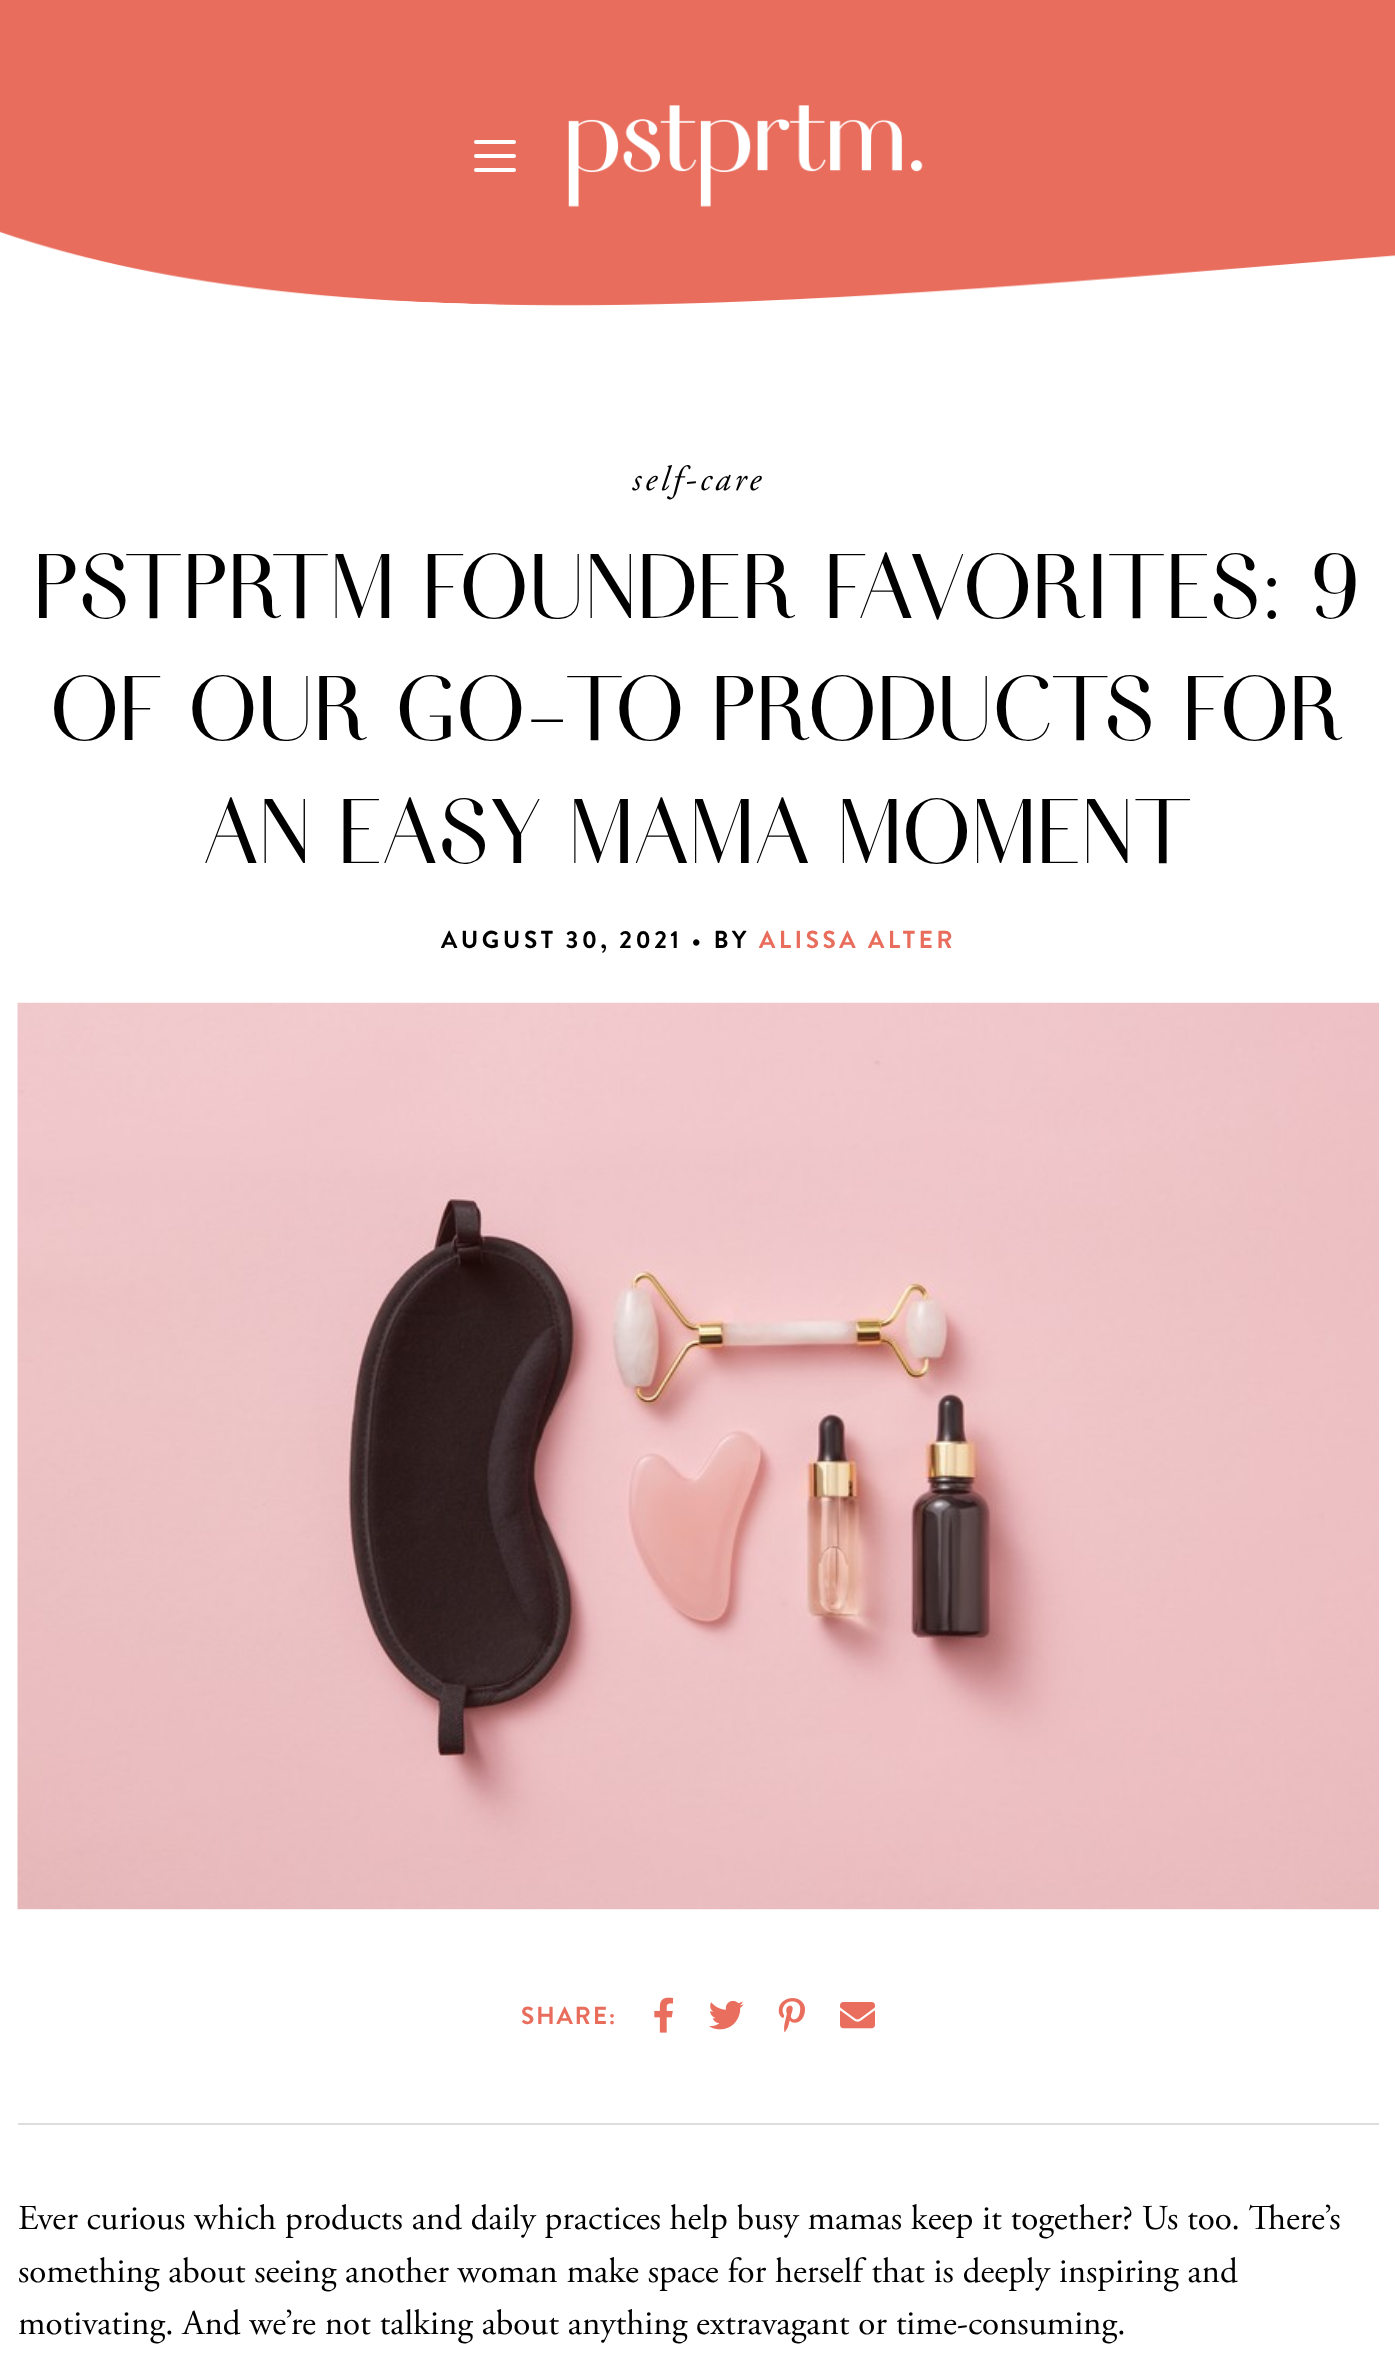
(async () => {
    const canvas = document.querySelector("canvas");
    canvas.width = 1395;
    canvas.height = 2361;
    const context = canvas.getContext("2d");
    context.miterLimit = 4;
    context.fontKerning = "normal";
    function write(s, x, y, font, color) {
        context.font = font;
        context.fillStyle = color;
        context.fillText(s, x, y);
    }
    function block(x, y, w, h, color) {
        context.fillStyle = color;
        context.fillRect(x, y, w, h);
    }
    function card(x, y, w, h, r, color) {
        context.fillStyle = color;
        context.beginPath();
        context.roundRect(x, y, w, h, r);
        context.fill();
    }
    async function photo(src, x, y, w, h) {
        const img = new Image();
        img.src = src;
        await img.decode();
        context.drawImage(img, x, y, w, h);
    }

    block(0, 0, 1395, 2361, "rgb(255, 255, 255)");
    await photo("media/1.png", 0, 0, 1395, 306);
    card(474, 140, 42, 4, 2, "rgb(255, 255, 255)");
    card(474, 154, 42, 4, 2, "rgb(255, 255, 255)");
    card(474, 168, 42, 4, 2, "rgb(255, 255, 255)");
    await photo("media/2.png", 568, 105, 355, 102);
    context.letterSpacing = "3.5px";
    write("self-care", 632, 490, "italic 35px Adobe Garamond", "rgb(0, 0, 0)");
    context.letterSpacing = "1.75px";
    write("PSTPRTM FOUNDER FAVORITES: 9", 34, 618, "122.5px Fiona", "rgb(0, 0, 0)");
    write("OF OUR GO-TO PRODUCTS FOR", 51, 740, "122.5px Fiona", "rgb(0, 0, 0)");
    write("AN EASY MAMA MOMENT", 204, 863, "122.5px Fiona", "rgb(0, 0, 0)");
    context.letterSpacing = "3.5px";
    write("AUGUST 30, 2021 • BY", 441, 948, "bold 24.5px Brandon Grotesque", "rgb(0, 0, 0)");
    write("ALISSA ALTER", 759, 948, "bold 24.5px Brandon Grotesque", "rgb(232, 109, 93)");
    await photo("media/3.png", 17, 1002, 1362, 908);
    block(18, 2123, 1361, 2, "rgb(221, 221, 221)");
    context.letterSpacing = "1.75px";
    write("SHARE:", 521, 2024, "bold 24.5px Brandon Grotesque", "rgb(232, 109, 93)");
    await photo("media/4.png", 654, 1997, 20, 36);
    await photo("media/5.png", 709, 2000, 35, 30);
    await photo("media/6.png", 778, 1998, 27, 35);
    await photo("media/7.png", 840, 2002, 35, 27);
    context.letterSpacing = "0px";
    write("Ever curious which products and daily practices help busy mamas keep it together? Us too. There’s", 18, 2229, "35px Adobe Garamond", "rgb(0, 0, 0)");
    write("something about seeing another woman make space for herself that is deeply inspiring and", 18, 2282, "35px Adobe Garamond", "rgb(0, 0, 0)");
    write("motivating. And we’re not talking about anything extravagant or time-consuming.", 18, 2334, "35px Adobe Garamond", "rgb(0, 0, 0)");
})();
